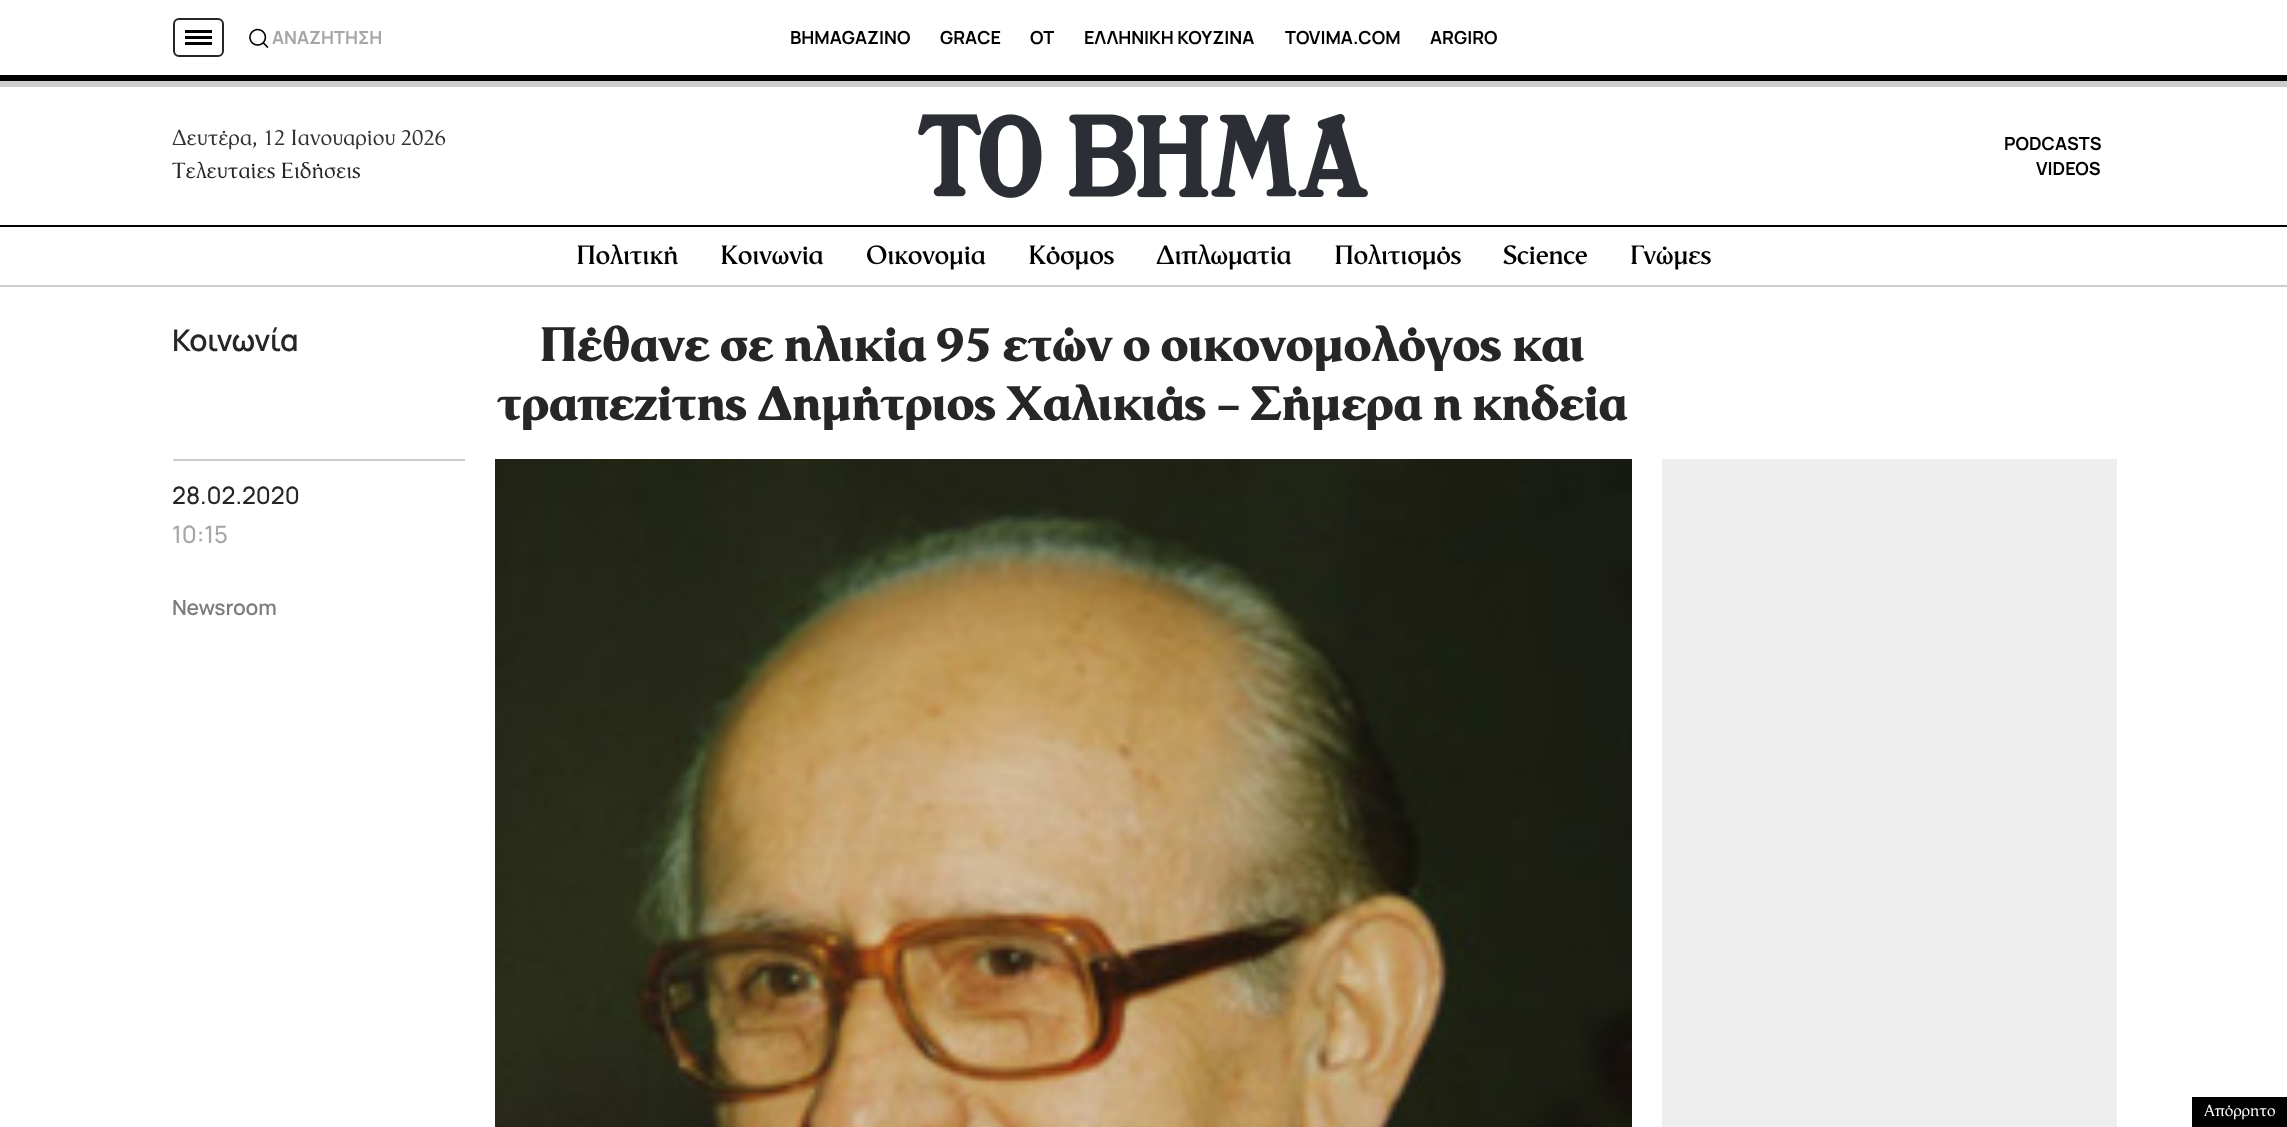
(async () => {
    const canvas = document.querySelector("canvas");
    canvas.width = 2287;
    canvas.height = 1127;
    const context = canvas.getContext("2d");
    context.miterLimit = 4;
    context.fontKerning = "normal";
    function write(s, x, y, font, color) {
        context.font = font;
        context.fillStyle = color;
        context.fillText(s, x, y);
    }
    function block(x, y, w, h, color) {
        context.fillStyle = color;
        context.fillRect(x, y, w, h);
    }
    async function photo(src, x, y, w, h) {
        const img = new Image();
        img.src = src;
        await img.decode();
        context.drawImage(img, x, y, w, h);
    }

    block(0, 0, 2287, 1127, "rgb(255, 255, 255)");
    block(0, 75, 2287, 6, "rgb(0, 0, 0)");
    context.beginPath();
    context.roundRect(174, 19, 49, 37, 5);
    context.strokeStyle = "rgb(38, 38, 38)";
    context.lineWidth = 2;
    context.stroke();
    block(185, 30, 27, 3, "rgb(0, 0, 0)");
    block(185, 36, 27, 3, "rgb(0, 0, 0)");
    block(185, 42, 27, 3, "rgb(0, 0, 0)");
    await photo("media/1.png", 249, 28, 20, 20);
    write("ΑΝΑΖΗΤΗΣΗ", 272, 44, "bold 18px Manrope", "rgb(166, 166, 166)");
    write("BHMAGAZINO", 790, 44, "bold 18px Manrope", "rgb(0, 0, 0)");
    write("GRACE", 940, 44, "bold 18px Manrope", "rgb(0, 0, 0)");
    write("OT", 1030, 44, "bold 18px Manrope", "rgb(0, 0, 0)");
    write("ΕΛΛΗΝΙΚΗ ΚΟΥΖΙΝΑ", 1084, 44, "bold 18px Manrope", "rgb(0, 0, 0)");
    write("TOVIMA.COM", 1285, 44, "bold 18px Manrope", "rgb(0, 0, 0)");
    write("ARGIRO", 1430, 44, "bold 18px Manrope", "rgb(0, 0, 0)");
    block(0, 81, 2287, 6, "rgb(204, 204, 204)");
    block(0, 225, 2287, 2, "rgb(0, 0, 0)");
    write("Δευτέρα, 12 Ιανουαρίου 2026", 172, 145, "22.5px 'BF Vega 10'", "rgb(51, 51, 51)");
    write("Τελευταίες Ειδήσεις", 172, 178, "22.5px 'BF Vega 10'", "rgb(38, 38, 38)");
    await photo("media/2.png", 918, 114, 450, 84);
    write("PODCASTS", 2004, 150, "bold 18px Manrope", "rgb(0, 0, 0)");
    write("VIDEOS", 2036, 175, "bold 18px Manrope", "rgb(0, 0, 0)");
    context.letterSpacing = "-0.5px";
    write("Πολιτική", 576, 264, "bold 27px 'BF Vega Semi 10'", "rgb(0, 0, 0)");
    write("Κοινωνία", 720, 264, "bold 27px 'BF Vega Semi 10'", "rgb(0, 0, 0)");
    write("Οικονομία", 866, 264, "bold 27px 'BF Vega Semi 10'", "rgb(0, 0, 0)");
    write("Κόσμος", 1028, 264, "bold 27px 'BF Vega Semi 10'", "rgb(0, 0, 0)");
    write("Διπλωματία", 1156, 264, "bold 27px 'BF Vega Semi 10'", "rgb(0, 0, 0)");
    write("Πολιτισμός", 1334, 264, "bold 27px 'BF Vega Semi 10'", "rgb(0, 0, 0)");
    write("Science", 1503, 264, "bold 27px 'BF Vega Semi 10'", "rgb(0, 0, 0)");
    write("Γνώμες", 1630, 264, "bold 27px 'BF Vega Semi 10'", "rgb(0, 0, 0)");
    block(0, 285, 2287, 2, "rgb(205, 205, 205)");
    write("Κοινωνία", 172, 351, "600 30px Manrope", "rgb(38, 38, 38)");
    context.letterSpacing = "-0.95px";
    write("Πέθανε σε ηλικία 95 ετών ο οικονομολόγος και", 539, 361, "48.9px 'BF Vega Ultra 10'", "rgb(38, 38, 38)");
    write("τραπεζίτης Δημήτριος Χαλικιάς – Σήμερα η κηδεία", 497, 420, "48.9px 'BF Vega Ultra 10'", "rgb(38, 38, 38)");
    block(173, 459, 292, 2, "rgb(204, 204, 204)");
    context.letterSpacing = "0px";
    write("28.02.2020", 172, 504, "500 24px Manrope", "rgb(38, 38, 38)");
    write("10:15", 172, 543, "500 24px Manrope", "rgb(166, 166, 166)");
    context.letterSpacing = "-0.25px";
    write("Newsroom", 172, 615, "600 21px Manrope", "rgb(125, 125, 125)");
    await photo("media/3.png", 495, 459, 1137, 668);
    block(1662, 459, 455, 668, "rgb(238, 238, 238)");
    block(2192, 1097, 95, 30, "rgb(0, 0, 0)");
    context.letterSpacing = "0px";
    write("Απόρρητο", 2204, 1116, "16.5px 'BF Vega 10'", "rgb(255, 255, 255)");
})();
